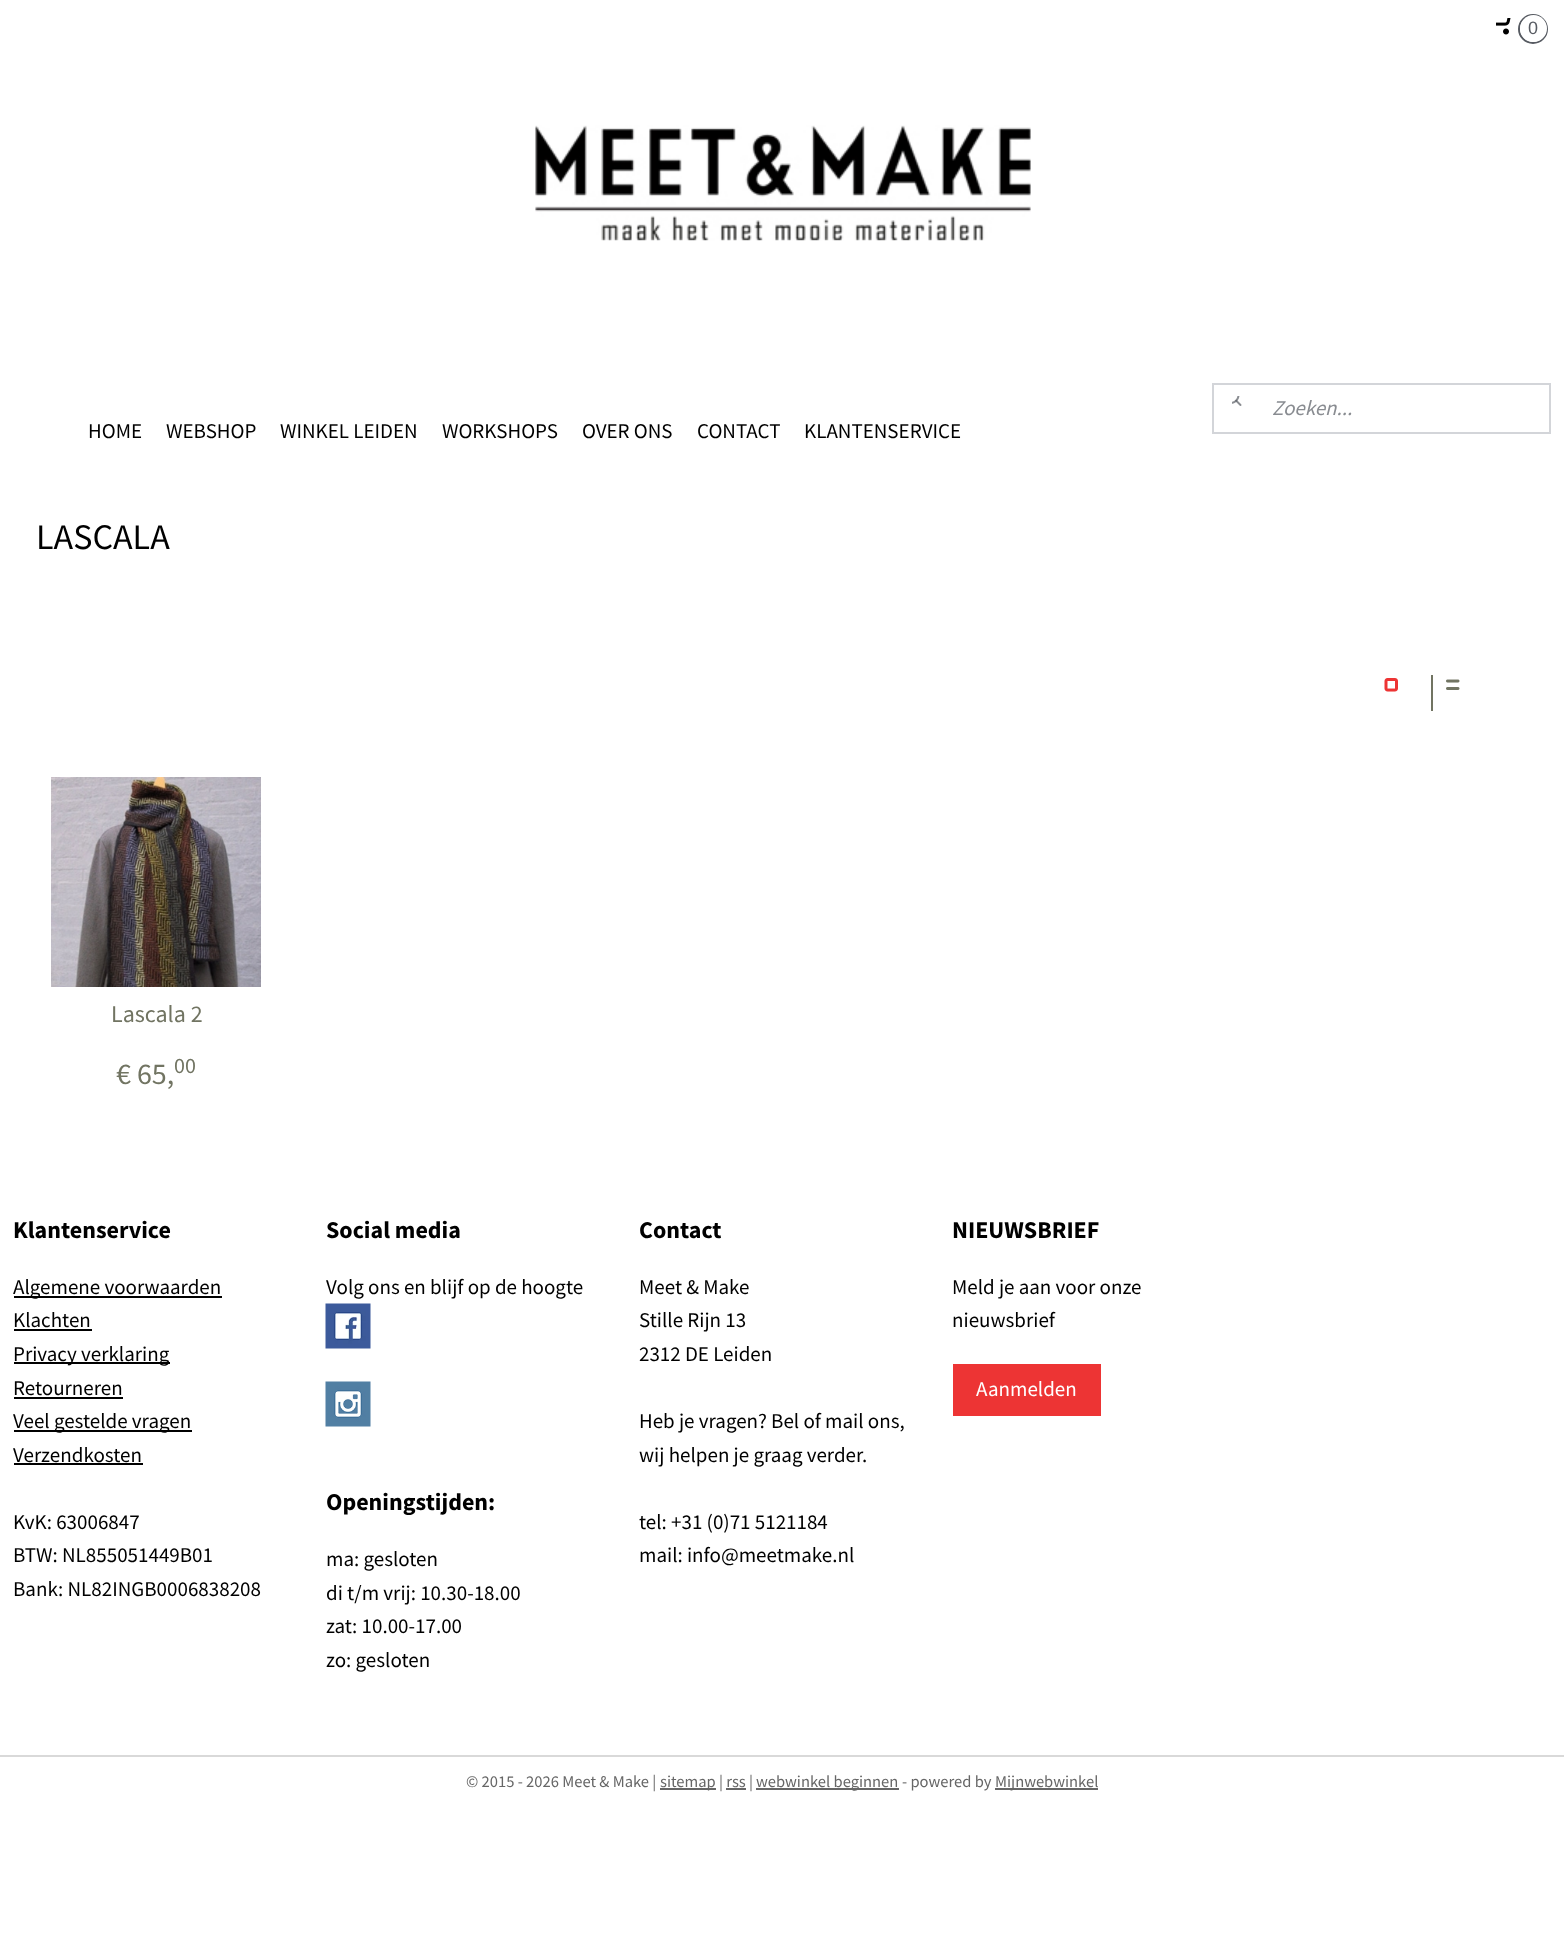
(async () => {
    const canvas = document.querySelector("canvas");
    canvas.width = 1564;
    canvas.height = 1955;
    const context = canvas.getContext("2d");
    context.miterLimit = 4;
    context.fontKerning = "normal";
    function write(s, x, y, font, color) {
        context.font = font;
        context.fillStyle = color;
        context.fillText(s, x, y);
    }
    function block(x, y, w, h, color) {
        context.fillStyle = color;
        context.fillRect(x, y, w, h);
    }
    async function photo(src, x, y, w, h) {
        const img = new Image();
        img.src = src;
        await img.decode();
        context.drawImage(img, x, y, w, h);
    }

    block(0, 0, 1564, 1955, "rgb(255, 255, 255)");
    await photo("media/1.png", 1496, 18, 15, 17);
    context.beginPath();
    context.arc(1533, 29, 14, 0, Math.PI * 2);
    context.strokeStyle = "rgb(87, 91, 98)";
    context.lineWidth = 2;
    context.stroke();
    context.beginPath();
    context.arc(1533.5, 28.5, 13.5, 0, Math.PI * 2);
    context.fill();
    write("0", 1528, 34, "18px Liberation Sans", "rgb(87, 91, 98)");
    await photo("media/2.png", 535, 125, 496, 116);
    context.strokeStyle = "rgb(211, 213, 217)";
    context.strokeRect(1213, 384, 337, 49);
    await photo("media/3.png", 1232, 396, 10, 10);
    write("Zoeken...", 1272, 415, "italic 21px Source Sans Pro", "rgb(137, 140, 145)");
    write("HOME", 88, 438, "21px Source Sans Pro", "rgb(0, 0, 0)");
    write("WEBSHOP", 166, 438, "21px Source Sans Pro", "rgb(0, 0, 0)");
    write("WINKEL LEIDEN", 280, 438, "21px Source Sans Pro", "rgb(0, 0, 0)");
    write("WORKSHOPS", 442, 438, "21px Source Sans Pro", "rgb(0, 0, 0)");
    write("OVER ONS", 582, 438, "21px Source Sans Pro", "rgb(0, 0, 0)");
    write("CONTACT", 697, 438, "21px Source Sans Pro", "rgb(0, 0, 0)");
    write("KLANTENSERVICE", 804, 438, "21px Source Sans Pro", "rgb(0, 0, 0)");
    write("LASCALA", 36, 549, "36px Source Sans Pro", "rgb(0, 0, 0)");
    await photo("media/4.png", 1384, 678, 14, 14);
    block(1431, 675, 2, 36, "rgb(113, 116, 98)");
    await photo("media/5.png", 1446, 679, 14, 11);
    await photo("media/6.png", 51, 777, 210, 210);
    write("Lascala 2", 111, 1022, "24px Source Sans Pro", "rgb(113, 116, 98)");
    write("€ 65,", 116, 1084, "30px Source Sans Pro", "rgb(113, 116, 98)");
    write("00", 174, 1073, "22px Source Sans Pro", "rgb(113, 116, 98)");
    write("Klantenservice", 13, 1238, "bold 24px Source Sans Pro", "rgb(0, 0, 0)");
    block(14, 1296, 208, 2, "rgb(0, 0, 0)");
    write("Algemene voorwaarden", 13, 1294, "21px Source Sans Pro", "rgb(0, 0, 0)");
    write("Klachten", 13, 1327, "21px Source Sans Pro", "rgb(0, 0, 0)");
    block(14, 1329, 78, 2, "rgb(0, 0, 0)");
    block(14, 1362, 156, 2, "rgb(0, 0, 0)");
    write("Privacy verklaring", 13, 1361, "21px Source Sans Pro", "rgb(0, 0, 0)");
    write("Retourneren", 13, 1395, "21px Source Sans Pro", "rgb(0, 0, 0)");
    block(14, 1397, 109, 2, "rgb(0, 0, 0)");
    block(14, 1430, 178, 2, "rgb(0, 0, 0)");
    write("Veel gestelde vragen", 13, 1428, "21px Source Sans Pro", "rgb(0, 0, 0)");
    write("Verzendkosten", 13, 1462, "21px Source Sans Pro", "rgb(0, 0, 0)");
    block(14, 1463, 129, 2, "rgb(0, 0, 0)");
    write("KvK: 63006847", 13, 1529, "21px Source Sans Pro", "rgb(0, 0, 0)");
    write("BTW: NL855051449B01", 13, 1562, "21px Source Sans Pro", "rgb(0, 0, 0)");
    write("Bank: NL82INGB0006838208", 13, 1596, "21px Source Sans Pro", "rgb(0, 0, 0)");
    write("Social media", 326, 1238, "bold 24px Source Sans Pro", "rgb(0, 0, 0)");
    write("Volg ons en blijf op de hoogte", 326, 1294, "21px Source Sans Pro", "rgb(0, 0, 0)");
    await photo("media/7.png", 325, 1303, 46, 46);
    await photo("media/8.png", 325, 1381, 46, 46);
    write("Openingstijden:", 326, 1510, "bold 24px Source Sans Pro", "rgb(0, 0, 0)");
    write("ma: gesloten", 326, 1566, "21px Source Sans Pro", "rgb(0, 0, 0)");
    write("di t/m vrij: 10.30-18.00", 326, 1600, "21px Source Sans Pro", "rgb(0, 0, 0)");
    write("zat: 10.00-17.00", 326, 1633, "21px Source Sans Pro", "rgb(0, 0, 0)");
    write("zo: gesloten", 326, 1667, "21px Source Sans Pro", "rgb(0, 0, 0)");
    write("Contact", 639, 1238, "bold 24px Source Sans Pro", "rgb(0, 0, 0)");
    write("Meet & Make", 639, 1294, "21px Source Sans Pro", "rgb(0, 0, 0)");
    write("Stille Rijn 13", 639, 1327, "21px Source Sans Pro", "rgb(0, 0, 0)");
    write("2312 DE Leiden", 639, 1361, "21px Source Sans Pro", "rgb(0, 0, 0)");
    write("Heb je vragen? Bel of mail ons,", 639, 1428, "21px Source Sans Pro", "rgb(0, 0, 0)");
    write("wij helpen je graag verder.", 639, 1462, "21px Source Sans Pro", "rgb(0, 0, 0)");
    write("tel: +31 (0)71 5121184", 639, 1529, "21px Source Sans Pro", "rgb(0, 0, 0)");
    write("mail: info@meetmake.nl", 639, 1562, "21px Source Sans Pro", "rgb(0, 0, 0)");
    write("NIEUWSBRIEF", 952, 1238, "bold 24px Source Sans Pro", "rgb(0, 0, 0)");
    write("Meld je aan voor onze", 952, 1294, "21px Source Sans Pro", "rgb(0, 0, 0)");
    write("nieuwsbrief", 952, 1327, "21px Source Sans Pro", "rgb(0, 0, 0)");
    block(953, 1364, 148, 52, "rgb(237, 52, 52)");
    write("Aanmelden", 976, 1396, "21px Source Sans Pro", "rgb(255, 255, 255)");
    block(0, 1755, 1564, 2, "rgb(217, 217, 217)");
    write("© 2015 - 2026 Meet & Make |", 466, 1787, "16.5px Source Sans Pro", "rgb(102, 102, 102)");
    block(660, 1788, 56, 2, "rgb(102, 102, 102)");
    write("sitemap", 660, 1787, "16.5px Source Sans Pro", "rgb(102, 102, 102)");
    write("| rss |", 719, 1787, "16.5px Source Sans Pro", "rgb(102, 102, 102)");
    block(756, 1788, 143, 2, "rgb(102, 102, 102)");
    write("webwinkel beginnen", 756, 1787, "16.5px Source Sans Pro", "rgb(102, 102, 102)");
    write("- powered by", 902, 1787, "16.5px Source Sans Pro", "rgb(102, 102, 102)");
    block(995, 1788, 103, 2, "rgb(102, 102, 102)");
    write("Mijnwebwinkel", 995, 1787, "16.5px Source Sans Pro", "rgb(102, 102, 102)");
    block(726, 1788, 20, 2, "rgb(102, 102, 102)");
})();
